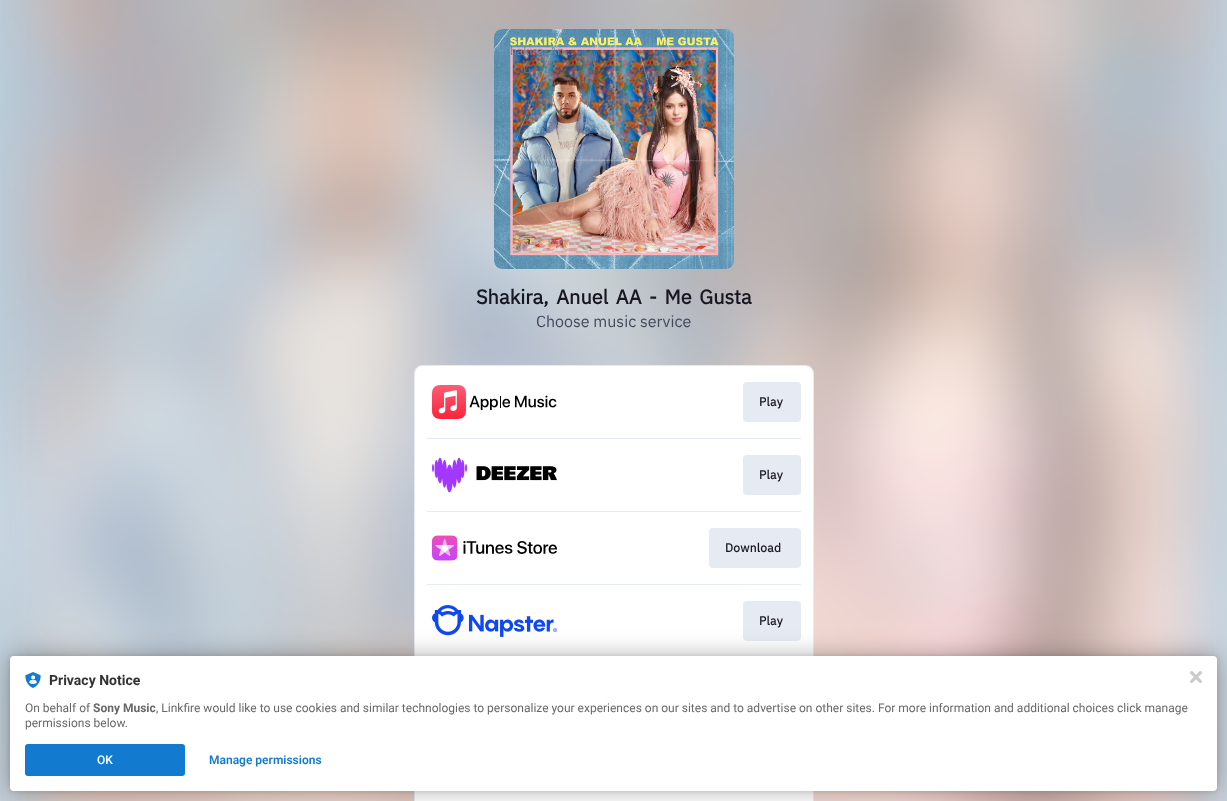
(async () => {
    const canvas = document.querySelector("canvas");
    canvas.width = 1227;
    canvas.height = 801;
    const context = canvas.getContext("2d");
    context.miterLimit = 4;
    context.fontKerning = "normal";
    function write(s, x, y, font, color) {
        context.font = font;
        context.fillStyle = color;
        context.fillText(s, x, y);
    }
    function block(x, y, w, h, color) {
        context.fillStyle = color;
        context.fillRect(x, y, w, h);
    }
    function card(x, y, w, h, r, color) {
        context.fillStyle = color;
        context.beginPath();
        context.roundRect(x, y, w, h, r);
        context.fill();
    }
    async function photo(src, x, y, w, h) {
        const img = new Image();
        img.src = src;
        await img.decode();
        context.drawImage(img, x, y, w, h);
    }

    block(0, 0, 1227, 801, "rgb(255, 255, 255)");
    await photo("media/1.png", 0, 0, 1227, 801);
    await photo("media/2.png", 494, 29, 240, 240);
    write("hakira, An…", 510, 55, "12px IBM Plex Sans", "rgb(130, 132, 154)");
    write("G", 523, 73, "12px IBM Plex Sans", "rgb(109, 117, 131)");
    write("t", 544, 73, "12px IBM Plex Sans", "rgb(109, 117, 131)");
    write(":", 706, 55, "12px IBM Plex Sans", "rgb(125, 144, 171)");
    context.wordSpacing = "2.75px";
    write("Shakira, Anuel AA - Me Gusta", 476, 304, "bold 20px IBM Plex Sans", "rgb(24, 23, 33)");
    context.wordSpacing = "0px";
    write("Choose music service", 536, 327, "16px IBM Plex Sans", "rgb(69, 75, 95)");
    context.beginPath();
    context.roundRect(414.5, 365.5, 399, 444, 7.5);
    context.strokeStyle = "rgb(230, 234, 242)";
    context.stroke();
    card(415, 366, 398, 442, 7, "rgb(255, 255, 255)");
    await photo("media/3.png", 432, 385, 125, 34);
    card(743, 382, 58, 40, 4, "rgb(230, 234, 242)");
    context.letterSpacing = "0.25px";
    write("Play", 759, 406, "bold 12px IBM Plex Sans", "rgb(24, 23, 33)");
    block(427, 438, 374, 1, "rgb(230, 234, 242)");
    await photo("media/4.png", 432, 457, 125, 36);
    card(743, 455, 58, 40, 4, "rgb(230, 234, 242)");
    write("Play", 759, 479, "bold 12px IBM Plex Sans", "rgb(24, 23, 33)");
    block(427, 511, 374, 1, "rgb(230, 234, 242)");
    await photo("media/5.png", 432, 535, 125, 26);
    card(709, 528, 92, 40, 4, "rgb(230, 234, 242)");
    write("Download", 725, 552, "bold 12px IBM Plex Sans", "rgb(24, 23, 33)");
    block(427, 584, 374, 1, "rgb(230, 234, 242)");
    await photo("media/6.png", 432, 605, 125, 32);
    card(743, 601, 58, 40, 4, "rgb(230, 234, 242)");
    write("Play", 759, 625, "bold 12px IBM Plex Sans", "rgb(24, 23, 33)");
    context.fillStyle = "rgba(0, 0, 0, 0.12)";
    context.filter = "blur(2px)";
    context.beginPath();
    context.roundRect(10, 656, 1207, 135, 4);
    context.fill();
    context.filter = "none";
    context.fillStyle = "rgba(0, 0, 0, 0.3)";
    context.filter = "blur(12px)";
    context.beginPath();
    context.roundRect(10, 656, 1207, 135, 4);
    context.fill();
    context.filter = "none";
    card(10, 656, 1207, 135, 4, "rgb(255, 255, 255)");
    await photo("media/7.png", 25, 672, 16, 16);
    context.letterSpacing = "0px";
    write("Privacy Notice", 49, 685, "bold 14px Roboto", "rgb(50, 50, 50)");
    write("On behalf of", 25, 712, "12px Roboto", "rgb(104, 104, 104)");
    write("Sony Music", 93, 712, "bold 12px Roboto", "rgb(104, 104, 104)");
    write(", Linkfire would like to use cookies and similar technologies to personalize your experiences on our sites and to advertise on other sites. For more information and additional choices click manage", 156, 712, "12px Roboto", "rgb(104, 104, 104)");
    write("permissions below.", 25, 727, "12px Roboto", "rgb(104, 104, 104)");
    card(25, 744, 160, 32, 3, "rgb(19, 123, 207)");
    write("OK", 97, 764, "500 12px Roboto", "rgb(255, 255, 255)");
    write("Manage permissions", 209, 764, "600 12px Roboto", "rgb(19, 123, 207)");
    await photo("media/8.png", 1190, 671, 12, 12);
})();
